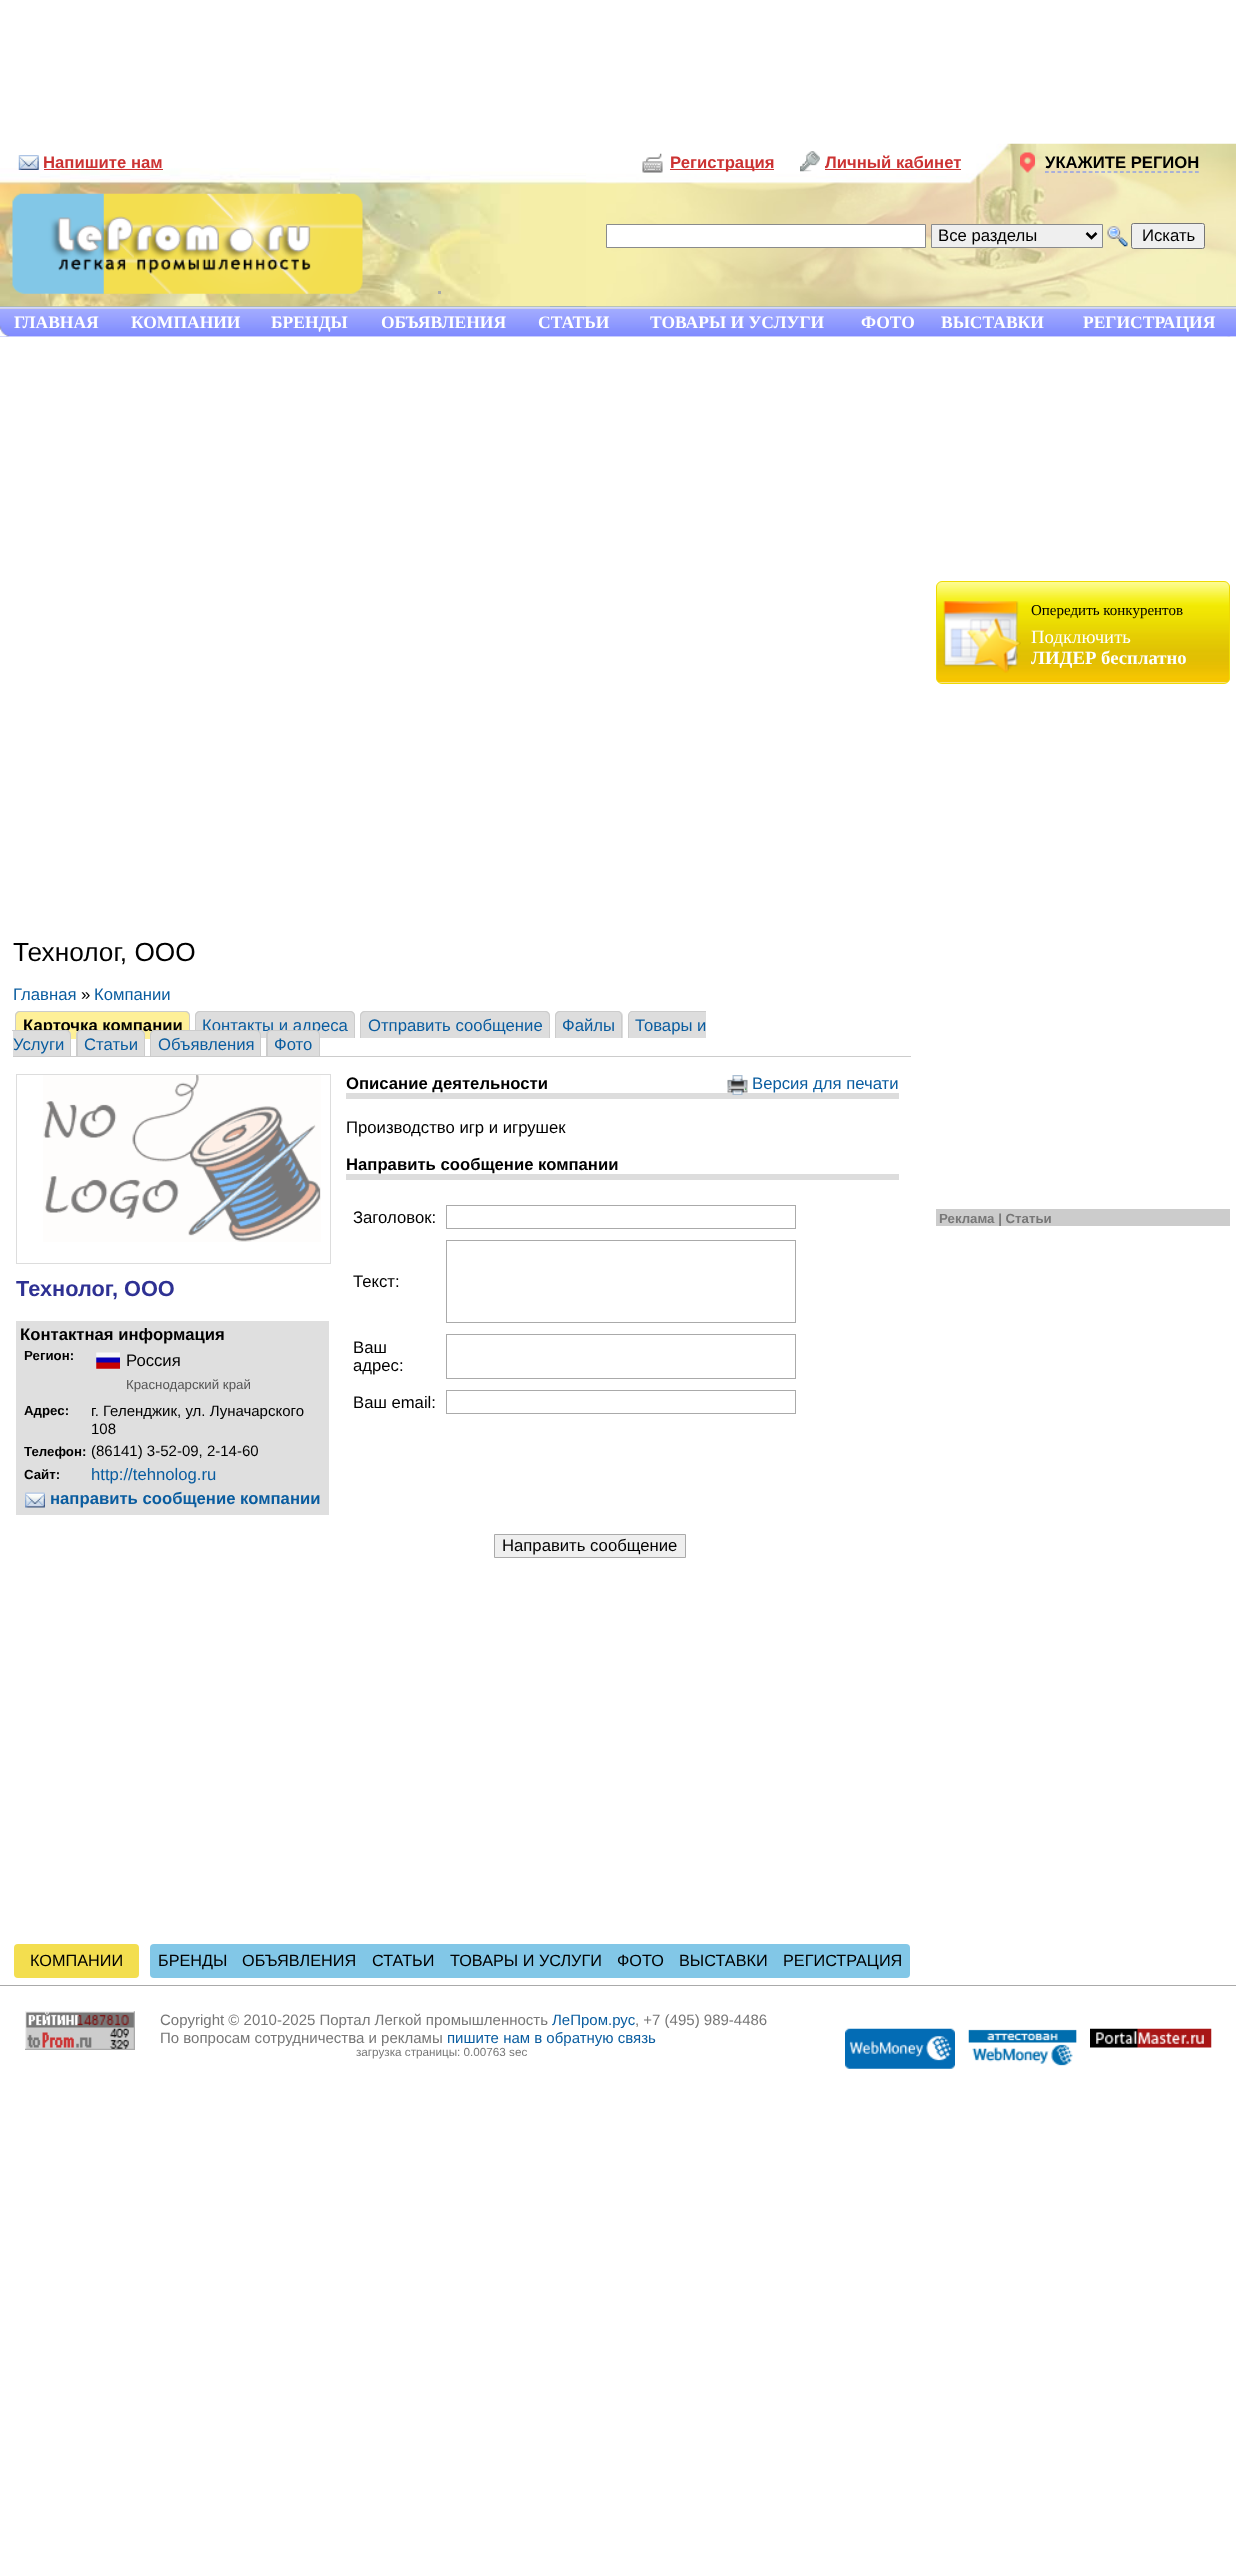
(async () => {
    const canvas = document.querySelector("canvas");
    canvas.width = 1236;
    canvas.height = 2554;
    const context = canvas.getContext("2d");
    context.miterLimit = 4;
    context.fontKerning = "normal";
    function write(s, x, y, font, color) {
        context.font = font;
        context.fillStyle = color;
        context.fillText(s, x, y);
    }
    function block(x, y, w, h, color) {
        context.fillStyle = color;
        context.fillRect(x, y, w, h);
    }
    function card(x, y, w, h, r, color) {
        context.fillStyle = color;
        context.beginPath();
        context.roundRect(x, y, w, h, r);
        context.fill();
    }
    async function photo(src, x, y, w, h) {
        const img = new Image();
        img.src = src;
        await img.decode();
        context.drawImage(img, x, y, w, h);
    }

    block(0, 0, 1236, 2554, "rgb(255, 255, 255)");
    await photo("media/1.png", 550, 173, 37, 133);
    block(0, 306, 1236, 1, "rgb(163, 181, 185)");
    await photo("media/2.png", 0, 168, 550, 139);
    await photo("media/3.png", 586, 143, 650, 164);
    await photo("media/4.png", 18, 155, 21, 15);
    write("Напишите нам", 43, 168, "bold 16.7px Liberation Sans", "rgb(204, 51, 51)");
    block(44, 169, 119, 1, "rgb(204, 51, 51)");
    await photo("media/5.png", 642, 153, 21, 20);
    block(670, 169, 104, 1, "rgb(204, 51, 51)");
    write("Регистрация", 670, 168, "bold 16.7px Liberation Sans", "rgb(204, 51, 51)");
    await photo("media/6.png", 800, 151, 20, 21);
    write("Личный кабинет", 825, 168, "bold 16.7px Liberation Sans", "rgb(204, 51, 51)");
    block(825, 169, 136, 1, "rgb(204, 51, 51)");
    await photo("media/7.png", 12, 193, 351, 101);
    context.fillStyle = "rgb(255, 255, 255)";
    context.beginPath();
    context.rect(606.5, 224.5, 319, 23);
    context.fill();
    context.strokeStyle = "rgb(137, 139, 140)";
    context.stroke();
    context.fillStyle = "rgb(239, 239, 239)";
    context.beginPath();
    context.rect(931.5, 224.5, 171, 23);
    context.fill();
    context.stroke();
    context.beginPath();
    context.moveTo(1086.5, 233);
    context.lineTo(1091.5, 238);
    context.lineTo(1096.5, 233);
    context.strokeStyle = "rgb(0, 0, 0)";
    context.lineWidth = 2.5;
    context.stroke();
    write("Все разделы", 938, 241, "16.7px Liberation Sans", "rgb(0, 0, 0)");
    await photo("media/8.png", 1107, 226, 21, 21);
    context.fillStyle = "rgb(239, 239, 239)";
    context.beginPath();
    context.roundRect(1131.5, 223.5, 73, 25, 2);
    context.fill();
    context.strokeStyle = "rgb(118, 118, 118)";
    context.lineWidth = 1;
    context.stroke();
    write("Искать", 1142, 241, "16.7px Liberation Sans", "rgb(0, 0, 0)");
    block(438, 291, 3, 3, "rgb(170, 170, 170)");
    await photo("media/9.png", 1020, 152, 15, 21);
    write("УКАЖИТЕ РЕГИОН", 1045, 168, "bold 16.7px Liberation Sans", "rgb(0, 0, 0)");
    context.beginPath();
    context.moveTo(1045, 172);
    context.lineTo(1199, 172);
    context.strokeStyle = "rgb(103, 128, 255)";
    context.lineWidth = 1.2;
    context.setLineDash([3.75, 2.5]);
    context.stroke();
    await photo("media/10.png", 0, 307, 1236, 30);
    block(0, 308, 1236, 1, "rgb(221, 221, 221)");
    await photo("media/12.png", 1227, 336, 9, 1);
    await photo("media/13.png", 0, 308, 1236, 29);
    await photo("media/11.png", 0, 325, 9, 12);
    write("ГЛАВНАЯ", 14, 328, "bold 17.5px Liberation Serif", "rgb(255, 255, 255)");
    write("КОМПАНИИ", 131, 328, "bold 17.5px Liberation Serif", "rgb(255, 255, 255)");
    write("БРЕНДЫ", 271, 328, "bold 17.5px Liberation Serif", "rgb(255, 255, 255)");
    write("ОБЪЯВЛЕНИЯ", 381, 328, "bold 17.5px Liberation Serif", "rgb(255, 255, 255)");
    write("СТАТЬИ", 538, 328, "bold 17.5px Liberation Serif", "rgb(255, 255, 255)");
    write("ТОВАРЫ И УСЛУГИ", 650, 328, "bold 17.5px Liberation Serif", "rgb(255, 255, 255)");
    write("ФОТО", 861, 328, "bold 17.5px Liberation Serif", "rgb(255, 255, 255)");
    write("ВЫСТАВКИ", 941, 328, "bold 17.5px Liberation Serif", "rgb(255, 255, 255)");
    write("РЕГИСТРАЦИЯ", 1083, 328, "bold 17.5px Liberation Serif", "rgb(255, 255, 255)");
    write("Технолог, ООО", 13, 961, "26.25px Liberation Sans", "rgb(0, 0, 0)");
    write("Главная", 13, 1000, "16.7px Liberation Sans", "rgb(9, 92, 159)");
    write("»", 81, 1000, "16.7px Liberation Sans", "rgb(0, 0, 0)");
    write("Компании", 94, 1000, "16.7px Liberation Sans", "rgb(9, 92, 159)");
    block(13, 1056, 898, 1, "rgb(204, 204, 204)");
    context.fillStyle = "rgb(254, 240, 152)";
    context.beginPath();
    context.roundRect(15, 1011, 175, 28, [5, 5, 0, 0]);
    context.fill();
    context.fillStyle = "rgb(204, 204, 204)";
    context.beginPath();
    context.moveTo(20, 1011);
    context.lineTo(185, 1011);
    context.bezierCurveTo(188, 1011, 190, 1013, 190, 1016);
    context.lineTo(190, 1039);
    context.lineTo(15, 1039);
    context.lineTo(15, 1016);
    context.bezierCurveTo(15, 1013, 17, 1011, 20, 1011);
    context.closePath();
    context.moveTo(20, 1012);
    context.lineTo(185, 1012);
    context.bezierCurveTo(187, 1012, 189, 1014, 189, 1016);
    context.lineTo(189, 1039);
    context.lineTo(16, 1039);
    context.lineTo(16, 1016);
    context.bezierCurveTo(16, 1014, 18, 1012, 20, 1012);
    context.closePath();
    context.fill("evenodd");
    write("Карточка компании", 23, 1031, "bold 16.7px Liberation Sans", "rgb(0, 0, 0)");
    context.fillStyle = "rgb(221, 221, 221)";
    context.beginPath();
    context.roundRect(195, 1011, 160, 27, [5, 5, 0, 0]);
    context.fill();
    context.fillStyle = "rgb(204, 204, 204)";
    context.beginPath();
    context.moveTo(200, 1011);
    context.lineTo(350, 1011);
    context.bezierCurveTo(353, 1011, 355, 1013, 355, 1016);
    context.lineTo(355, 1038);
    context.lineTo(195, 1038);
    context.lineTo(195, 1016);
    context.bezierCurveTo(195, 1013, 197, 1011, 200, 1011);
    context.closePath();
    context.moveTo(200, 1012);
    context.lineTo(350, 1012);
    context.bezierCurveTo(352, 1012, 354, 1014, 354, 1016);
    context.lineTo(354, 1038);
    context.lineTo(196, 1038);
    context.lineTo(196, 1016);
    context.bezierCurveTo(196, 1014, 198, 1012, 200, 1012);
    context.closePath();
    context.fill("evenodd");
    write("Контакты и адреса", 202, 1031, "16.7px Liberation Sans", "rgb(9, 92, 159)");
    context.fillStyle = "rgb(221, 221, 221)";
    context.beginPath();
    context.roundRect(360, 1011, 190, 27, [5, 5, 0, 0]);
    context.fill();
    context.fillStyle = "rgb(204, 204, 204)";
    context.beginPath();
    context.moveTo(365, 1011);
    context.lineTo(545, 1011);
    context.bezierCurveTo(548, 1011, 550, 1013, 550, 1016);
    context.lineTo(550, 1038);
    context.lineTo(360, 1038);
    context.lineTo(360, 1016);
    context.bezierCurveTo(360, 1013, 362, 1011, 365, 1011);
    context.closePath();
    context.moveTo(365, 1012);
    context.lineTo(545, 1012);
    context.bezierCurveTo(547, 1012, 549, 1014, 549, 1016);
    context.lineTo(549, 1038);
    context.lineTo(361, 1038);
    context.lineTo(361, 1016);
    context.bezierCurveTo(361, 1014, 363, 1012, 365, 1012);
    context.closePath();
    context.fill("evenodd");
    write("Отправить сообщение", 368, 1031, "16.7px Liberation Sans", "rgb(9, 92, 159)");
    context.fillStyle = "rgb(221, 221, 221)";
    context.beginPath();
    context.roundRect(555, 1011, 68, 27, [5, 5, 0, 0]);
    context.fill();
    context.fillStyle = "rgb(204, 204, 204)";
    context.beginPath();
    context.moveTo(560, 1011);
    context.lineTo(618, 1011);
    context.bezierCurveTo(620, 1011, 622, 1013, 622, 1016);
    context.lineTo(622, 1038);
    context.lineTo(555, 1038);
    context.lineTo(555, 1016);
    context.bezierCurveTo(555, 1013, 557, 1011, 560, 1011);
    context.closePath();
    context.moveTo(560, 1012);
    context.lineTo(618, 1012);
    context.bezierCurveTo(620, 1012, 621, 1014, 621, 1016);
    context.lineTo(621, 1038);
    context.lineTo(556, 1038);
    context.lineTo(556, 1016);
    context.bezierCurveTo(556, 1014, 558, 1012, 560, 1012);
    context.closePath();
    context.fill("evenodd");
    write("Файлы", 562, 1031, "16.7px Liberation Sans", "rgb(9, 92, 159)");
    context.fillStyle = "rgb(221, 221, 221)";
    context.beginPath();
    context.roundRect(628, 1011, 78, 27, [5, 0, 0, 0]);
    context.fill();
    context.fillStyle = "rgb(204, 204, 204)";
    context.beginPath();
    context.moveTo(632, 1011);
    context.lineTo(706, 1011);
    context.lineTo(706, 1038);
    context.lineTo(628, 1038);
    context.lineTo(628, 1016);
    context.bezierCurveTo(628, 1013, 630, 1011, 632, 1011);
    context.closePath();
    context.moveTo(632, 1012);
    context.lineTo(706, 1012);
    context.lineTo(706, 1038);
    context.lineTo(629, 1038);
    context.lineTo(629, 1016);
    context.bezierCurveTo(629, 1014, 630, 1012, 632, 1012);
    context.closePath();
    context.fill("evenodd");
    write("Товары и", 635, 1031, "16.7px Liberation Sans", "rgb(9, 92, 159)");
    context.fillStyle = "rgb(221, 221, 221)";
    context.beginPath();
    context.roundRect(13, 1030, 58, 26, [0, 5, 0, 0]);
    context.fill();
    context.fillStyle = "rgb(204, 204, 204)";
    context.beginPath();
    context.moveTo(12, 1030);
    context.lineTo(66, 1030);
    context.bezierCurveTo(69, 1030, 71, 1032, 71, 1035);
    context.lineTo(71, 1056);
    context.lineTo(12, 1056);
    context.closePath();
    context.moveTo(12, 1031);
    context.lineTo(66, 1031);
    context.bezierCurveTo(68, 1031, 70, 1033, 70, 1035);
    context.lineTo(70, 1056);
    context.lineTo(12, 1056);
    context.closePath();
    context.fill("evenodd");
    write("Услуги", 13, 1050, "16.7px Liberation Sans", "rgb(9, 92, 159)");
    context.fillStyle = "rgb(221, 221, 221)";
    context.beginPath();
    context.roundRect(76, 1030, 69, 26, [5, 5, 0, 0]);
    context.fill();
    context.fillStyle = "rgb(204, 204, 204)";
    context.beginPath();
    context.moveTo(81, 1030);
    context.lineTo(140, 1030);
    context.bezierCurveTo(143, 1030, 145, 1032, 145, 1035);
    context.lineTo(145, 1056);
    context.lineTo(76, 1056);
    context.lineTo(76, 1035);
    context.bezierCurveTo(76, 1032, 78, 1030, 81, 1030);
    context.closePath();
    context.moveTo(81, 1031);
    context.lineTo(140, 1031);
    context.bezierCurveTo(142, 1031, 144, 1033, 144, 1035);
    context.lineTo(144, 1056);
    context.lineTo(78, 1056);
    context.lineTo(78, 1035);
    context.bezierCurveTo(78, 1033, 79, 1031, 81, 1031);
    context.closePath();
    context.fill("evenodd");
    write("Статьи", 84, 1050, "16.7px Liberation Sans", "rgb(9, 92, 159)");
    context.fillStyle = "rgb(221, 221, 221)";
    context.beginPath();
    context.roundRect(150, 1030, 111, 26, [5, 5, 0, 0]);
    context.fill();
    context.fillStyle = "rgb(204, 204, 204)";
    context.beginPath();
    context.moveTo(155, 1030);
    context.lineTo(256, 1030);
    context.bezierCurveTo(259, 1030, 261, 1032, 261, 1035);
    context.lineTo(261, 1056);
    context.lineTo(150, 1056);
    context.lineTo(150, 1035);
    context.bezierCurveTo(150, 1032, 152, 1030, 155, 1030);
    context.closePath();
    context.moveTo(155, 1031);
    context.lineTo(256, 1031);
    context.bezierCurveTo(258, 1031, 260, 1033, 260, 1035);
    context.lineTo(260, 1056);
    context.lineTo(151, 1056);
    context.lineTo(151, 1035);
    context.bezierCurveTo(151, 1033, 153, 1031, 155, 1031);
    context.closePath();
    context.fill("evenodd");
    write("Объявления", 158, 1050, "16.7px Liberation Sans", "rgb(9, 92, 159)");
    context.fillStyle = "rgb(221, 221, 221)";
    context.beginPath();
    context.roundRect(266, 1030, 54, 26, [5, 5, 0, 0]);
    context.fill();
    context.fillStyle = "rgb(204, 204, 204)";
    context.beginPath();
    context.moveTo(271, 1030);
    context.lineTo(315, 1030);
    context.bezierCurveTo(318, 1030, 320, 1032, 320, 1035);
    context.lineTo(320, 1056);
    context.lineTo(266, 1056);
    context.lineTo(266, 1035);
    context.bezierCurveTo(266, 1032, 268, 1030, 271, 1030);
    context.closePath();
    context.moveTo(271, 1031);
    context.lineTo(315, 1031);
    context.bezierCurveTo(317, 1031, 319, 1033, 319, 1035);
    context.lineTo(319, 1056);
    context.lineTo(268, 1056);
    context.lineTo(268, 1035);
    context.bezierCurveTo(268, 1033, 269, 1031, 271, 1031);
    context.closePath();
    context.fill("evenodd");
    write("Фото", 274, 1050, "16.7px Liberation Sans", "rgb(9, 92, 159)");
    context.strokeStyle = "rgb(221, 221, 221)";
    context.lineWidth = 1;
    context.setLineDash([]);
    context.strokeRect(16.5, 1074.5, 314, 189);
    await photo("media/14.png", 43, 1075, 278, 167);
    write("Технолог, ООО", 16, 1296, "bold 21.75px Liberation Sans", "rgb(46, 49, 147)");
    block(16, 1321, 313, 194, "rgb(223, 223, 223)");
    write("Контактная информация", 20, 1340, "bold 16.7px Liberation Sans", "rgb(0, 0, 0)");
    write("Регион:", 24, 1360, "bold 13.25px Liberation Sans", "rgb(0, 0, 0)");
    await photo("media/15.png", 96, 1352, 24, 17);
    write("Россия", 126, 1366, "16.7px Liberation Sans", "rgb(0, 0, 0)");
    write("Краснодарский край", 126, 1389, "13.25px Liberation Sans", "rgb(85, 85, 85)");
    write("Адрес:", 24, 1415, "bold 13.25px Liberation Sans", "rgb(0, 0, 0)");
    write("г. Геленджик, ул. Луначарского", 91, 1416, "15px Liberation Sans", "rgb(0, 0, 0)");
    write("108", 91, 1434, "15px Liberation Sans", "rgb(0, 0, 0)");
    write("Телефон:", 24, 1456, "bold 13.25px Liberation Sans", "rgb(0, 0, 0)");
    write("(86141) 3-52-09, 2-14-60", 91, 1456, "15px Liberation Sans", "rgb(0, 0, 0)");
    write("Сайт:", 24, 1479, "bold 13.25px Liberation Sans", "rgb(0, 0, 0)");
    write("http://tehnolog.ru", 91, 1480, "16.7px Liberation Sans", "rgb(9, 92, 159)");
    await photo("media/16.png", 25, 1492, 20, 16);
    write("направить сообщение компании", 50, 1504, "bold 16.7px Liberation Sans", "rgb(9, 92, 159)");
    block(346, 1093, 553, 6, "rgb(221, 221, 221)");
    write("Описание деятельности", 346, 1089, "bold 16.7px Liberation Sans", "rgb(0, 0, 0)");
    await photo("media/17.png", 727, 1075, 21, 20);
    write("Версия для печати", 752, 1089, "16.7px Liberation Sans", "rgb(9, 92, 159)");
    write("Производство игр и игрушек", 346, 1133, "16.7px Liberation Sans", "rgb(0, 0, 0)");
    block(346, 1174, 553, 6, "rgb(221, 221, 221)");
    write("Направить сообщение компании", 346, 1170, "bold 16.7px Liberation Sans", "rgb(0, 0, 0)");
    write("Заголовок:", 353, 1223, "16.7px Liberation Sans", "rgb(0, 0, 0)");
    context.strokeStyle = "rgb(170, 170, 170)";
    context.strokeRect(446.5, 1205.5, 349, 23);
    write("Текст:", 353, 1287, "16.7px Liberation Sans", "rgb(0, 0, 0)");
    context.strokeRect(446.5, 1240.5, 349, 82);
    write("Ваш", 353, 1353, "16.7px Liberation Sans", "rgb(0, 0, 0)");
    write("адрес:", 353, 1371, "16.7px Liberation Sans", "rgb(0, 0, 0)");
    context.strokeRect(446.5, 1334.5, 349, 44);
    write("Ваш email:", 353, 1408, "16.7px Liberation Sans", "rgb(0, 0, 0)");
    context.strokeRect(446.5, 1390.5, 349, 23);
    context.fillStyle = "rgb(239, 239, 239)";
    context.beginPath();
    context.rect(494.5, 1534.5, 191, 23);
    context.fill();
    context.stroke();
    write("Направить сообщение", 502, 1551, "16.7px Liberation Sans", "rgb(0, 0, 0)");
    card(14, 1944, 125, 34, 4, "rgb(243, 222, 79)");
    write("КОМПАНИИ", 30, 1966, "16.25px Liberation Sans", "rgb(0, 0, 0)");
    card(150, 1944, 760, 34, 4, "rgb(130, 199, 231)");
    write("БРЕНДЫ", 158, 1966, "16.25px Liberation Sans", "rgb(0, 0, 0)");
    write("ОБЪЯВЛЕНИЯ", 242, 1966, "16.25px Liberation Sans", "rgb(0, 0, 0)");
    write("СТАТЬИ", 372, 1966, "16.25px Liberation Sans", "rgb(0, 0, 0)");
    write("ТОВАРЫ И УСЛУГИ", 450, 1966, "16.25px Liberation Sans", "rgb(0, 0, 0)");
    write("ФОТО", 617, 1966, "16.25px Liberation Sans", "rgb(0, 0, 0)");
    write("ВЫСТАВКИ", 679, 1966, "16.25px Liberation Sans", "rgb(0, 0, 0)");
    write("РЕГИСТРАЦИЯ", 783, 1966, "16.25px Liberation Sans", "rgb(0, 0, 0)");
    await photo("media/18.png", 936, 581, 294, 102);
    context.beginPath();
    context.roundRect(936.5, 581.5, 293, 102, 5.5);
    context.strokeStyle = "rgb(238, 218, 3)";
    context.stroke();
    await photo("media/19.png", 943, 601, 78, 72);
    write("Опередить конкурентов", 1031, 615, "15px Liberation Serif", "rgb(0, 0, 0)");
    write("Подключить", 1031, 643, "18.75px Liberation Serif", "rgb(255, 255, 255)");
    write("ЛИДЕР бесплатно", 1031, 664, "bold 18.75px Liberation Serif", "rgb(255, 255, 255)");
    block(936, 1209, 294, 17, "rgb(204, 204, 204)");
    write("Реклама | Статьи", 939, 1223, "bold 13.25px Liberation Sans", "rgb(119, 119, 119)");
    block(0, 1985, 1236, 1, "rgb(170, 170, 170)");
    await photo("media/20.png", 25, 2011, 110, 39);
    write("Copyright © 2010-2025 Портал Легкой промышленность", 160, 2025, "15px Liberation Sans", "rgb(119, 119, 119)");
    write("ЛеПром.рус", 552, 2025, "15px Liberation Sans", "rgb(9, 92, 159)");
    write(", +7 (495) 989-4486", 635, 2025, "15px Liberation Sans", "rgb(119, 119, 119)");
    write("По вопросам сотрудничества и рекламы", 160, 2043, "15px Liberation Sans", "rgb(119, 119, 119)");
    write("пишите нам в обратную связь", 447, 2043, "15px Liberation Sans", "rgb(9, 92, 159)");
    await photo("media/21.png", 845, 2028, 110, 41);
    await photo("media/22.png", 968, 2029, 109, 37);
    await photo("media/23.png", 1090, 2028, 122, 20);
    write("загрузка страницы: 0.00763 sec", 356, 2056, "11.7px Liberation Sans", "rgb(119, 119, 119)");
})();
